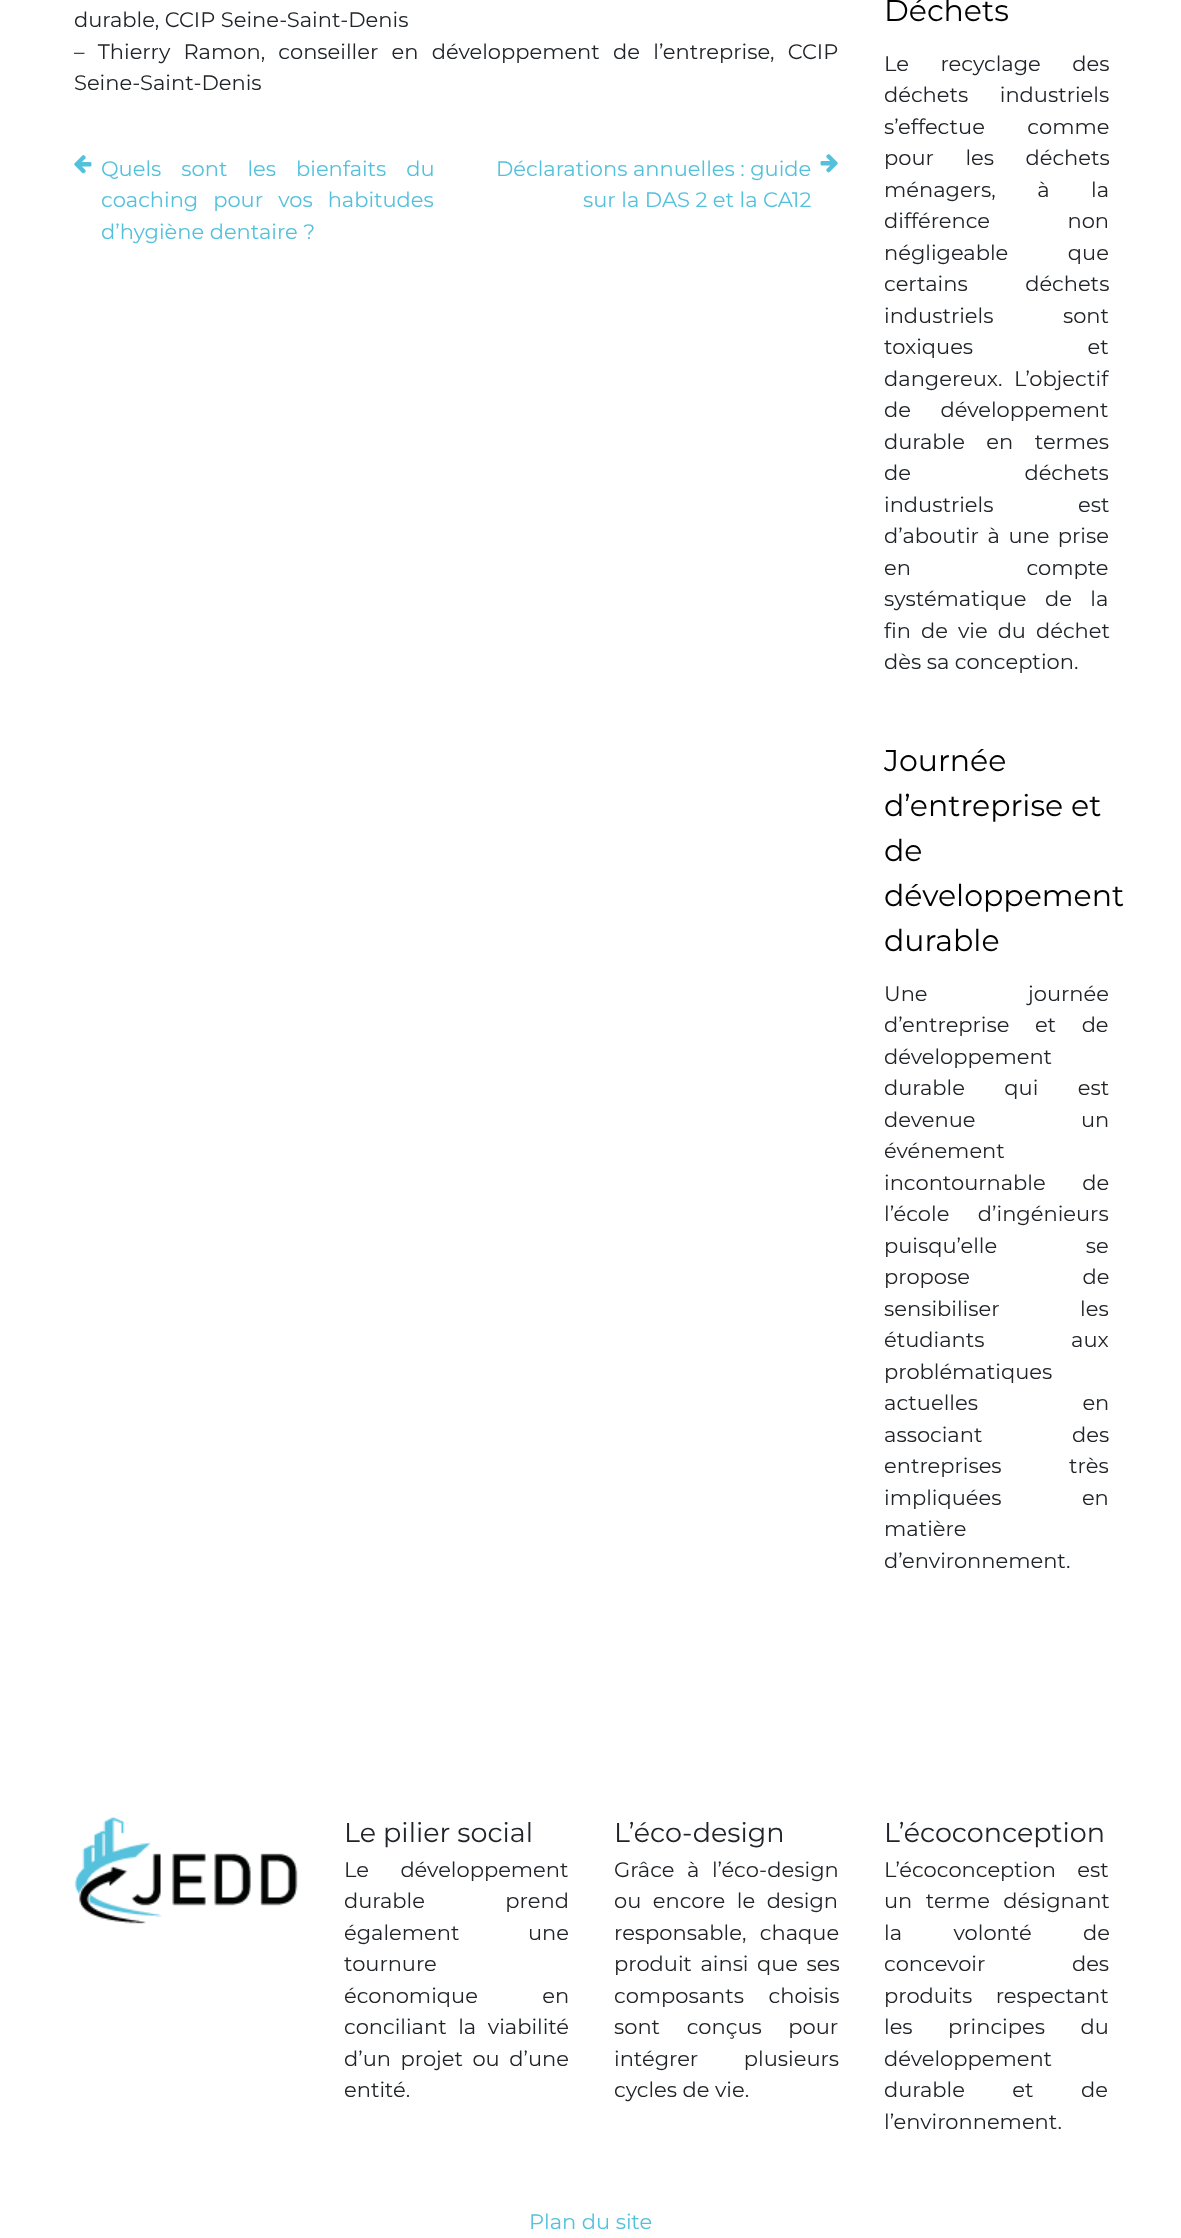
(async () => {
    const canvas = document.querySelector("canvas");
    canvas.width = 1181;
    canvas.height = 2238;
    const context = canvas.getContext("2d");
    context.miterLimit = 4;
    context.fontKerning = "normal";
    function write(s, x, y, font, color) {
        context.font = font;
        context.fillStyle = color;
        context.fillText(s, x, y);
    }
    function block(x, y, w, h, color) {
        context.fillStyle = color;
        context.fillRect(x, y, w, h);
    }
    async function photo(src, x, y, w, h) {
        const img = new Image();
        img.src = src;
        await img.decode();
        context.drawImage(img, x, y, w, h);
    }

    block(0, 0, 1181, 2238, "rgb(255, 255, 255)");
    write("durable, CCIP Seine-Saint-Denis", 74, 27, "21px Montserrat", "rgb(33, 37, 41)");
    context.wordSpacing = "7.75px";
    write("– Thierry Ramon, conseiller en développement de l’entreprise, CCIP", 74, 59, "21px Montserrat", "rgb(33, 37, 41)");
    context.wordSpacing = "0px";
    write("Seine-Saint-Denis", 74, 90, "21px Montserrat", "rgb(33, 37, 41)");
    await photo("media/1.png", 74, 155, 18, 19);
    context.wordSpacing = "14.5px";
    write("Quels sont les bienfaits du", 101, 176, "21px Montserrat", "rgb(84, 193, 220)");
    context.wordSpacing = "9.5px";
    write("coaching pour vos habitudes", 101, 207, "21px Montserrat", "rgb(84, 193, 220)");
    context.wordSpacing = "0px";
    write("d’hygiène dentaire ?", 101, 239, "21px Montserrat", "rgb(84, 193, 220)");
    write("Déclarations annuelles : guide", 496, 176, "21px Montserrat", "rgb(84, 193, 220)");
    await photo("media/2.png", 820, 154, 18, 19);
    write("sur la DAS 2 et la CA12", 583, 207, "21px Montserrat", "rgb(84, 193, 220)");
    write("Déchets", 884, 21, "30px Montserrat", "rgb(0, 0, 0)");
    context.wordSpacing = "26px";
    write("Le recyclage des", 884, 71, "21px Montserrat", "rgb(33, 37, 41)");
    write("déchets industriels", 884, 102, "21px Montserrat", "rgb(33, 37, 41)");
    context.wordSpacing = "37px";
    write("s’effectue comme", 884, 134, "21px Montserrat", "rgb(33, 37, 41)");
    context.wordSpacing = "26px";
    write("pour les déchets", 884, 165, "21px Montserrat", "rgb(33, 37, 41)");
    context.wordSpacing = "36px";
    write("ménagers, à la", 884, 197, "21px Montserrat", "rgb(33, 37, 41)");
    context.wordSpacing = "72px";
    write("différence non", 884, 228, "21px Montserrat", "rgb(33, 37, 41)");
    context.wordSpacing = "54px";
    write("négligeable que", 884, 260, "21px Montserrat", "rgb(33, 37, 41)");
    context.wordSpacing = "52px";
    write("certains déchets", 884, 291, "21px Montserrat", "rgb(33, 37, 41)");
    context.wordSpacing = "64px";
    write("industriels sont", 884, 323, "21px Montserrat", "rgb(33, 37, 41)");
    context.wordSpacing = "109px";
    write("toxiques et", 884, 354, "21px Montserrat", "rgb(33, 37, 41)");
    context.wordSpacing = "0px";
    write("dangereux.", 884, 386, "21px Montserrat", "rgb(33, 37, 41)");
    write("L’objectif", 1014, 386, "21px Montserrat", "rgb(33, 37, 41)");
    context.wordSpacing = "24px";
    write("de développement", 884, 417, "21px Montserrat", "rgb(33, 37, 41)");
    context.wordSpacing = "16px";
    write("durable en termes", 884, 449, "21px Montserrat", "rgb(33, 37, 41)");
    context.wordSpacing = "108px";
    write("de déchets", 884, 480, "21px Montserrat", "rgb(33, 37, 41)");
    context.wordSpacing = "79px";
    write("industriels est", 884, 512, "21px Montserrat", "rgb(33, 37, 41)");
    context.wordSpacing = "3px";
    write("d’aboutir à une prise", 884, 543, "21px Montserrat", "rgb(33, 37, 41)");
    context.wordSpacing = "110px";
    write("en compte", 884, 575, "21px Montserrat", "rgb(33, 37, 41)");
    context.wordSpacing = "13px";
    write("systématique de la", 884, 606, "21px Montserrat", "rgb(33, 37, 41)");
    context.wordSpacing = "4.5px";
    write("fin de vie du déchet", 884, 638, "21px Montserrat", "rgb(33, 37, 41)");
    context.wordSpacing = "0px";
    write("dès sa conception.", 884, 669, "21px Montserrat", "rgb(33, 37, 41)");
    write("Journée", 884, 771, "30px Montserrat", "rgb(0, 0, 0)");
    write("d’entreprise et", 884, 816, "30px Montserrat", "rgb(0, 0, 0)");
    write("de", 884, 861, "30px Montserrat", "rgb(0, 0, 0)");
    write("développement", 884, 906, "30px Montserrat", "rgb(0, 0, 0)");
    write("durable", 884, 951, "30px Montserrat", "rgb(0, 0, 0)");
    context.wordSpacing = "95px";
    write("Une journée", 884, 1001, "21px Montserrat", "rgb(33, 37, 41)");
    context.wordSpacing = "20px";
    write("d’entreprise et de", 884, 1032, "21px Montserrat", "rgb(33, 37, 41)");
    context.wordSpacing = "0px";
    write("développement", 884, 1064, "21px Montserrat", "rgb(33, 37, 41)");
    context.wordSpacing = "34px";
    write("durable qui est", 884, 1095, "21px Montserrat", "rgb(33, 37, 41)");
    context.wordSpacing = "100px";
    write("devenue un", 884, 1127, "21px Montserrat", "rgb(33, 37, 41)");
    context.wordSpacing = "0px";
    write("événement", 884, 1158, "21px Montserrat", "rgb(33, 37, 41)");
    context.wordSpacing = "31px";
    write("incontournable de", 884, 1190, "21px Montserrat", "rgb(33, 37, 41)");
    context.wordSpacing = "23px";
    write("l’école d’ingénieurs", 884, 1221, "21px Montserrat", "rgb(33, 37, 41)");
    context.wordSpacing = "83px";
    write("puisqu’elle se", 884, 1253, "21px Montserrat", "rgb(33, 37, 41)");
    context.wordSpacing = "107px";
    write("propose de", 884, 1284, "21px Montserrat", "rgb(33, 37, 41)");
    context.wordSpacing = "75px";
    write("sensibiliser les", 884, 1316, "21px Montserrat", "rgb(33, 37, 41)");
    context.wordSpacing = "81px";
    write("étudiants aux", 884, 1347, "21px Montserrat", "rgb(33, 37, 41)");
    context.wordSpacing = "0px";
    write("problématiques", 884, 1379, "21px Montserrat", "rgb(33, 37, 41)");
    context.wordSpacing = "99px";
    write("actuelles en", 884, 1410, "21px Montserrat", "rgb(33, 37, 41)");
    context.wordSpacing = "84px";
    write("associant des", 884, 1442, "21px Montserrat", "rgb(33, 37, 41)");
    context.wordSpacing = "62px";
    write("entreprises très", 884, 1473, "21px Montserrat", "rgb(33, 37, 41)");
    context.wordSpacing = "75px";
    write("impliquées en", 884, 1505, "21px Montserrat", "rgb(33, 37, 41)");
    context.wordSpacing = "0px";
    write("matière", 884, 1536, "21px Montserrat", "rgb(33, 37, 41)");
    write("d’environnement.", 884, 1568, "21px Montserrat", "rgb(33, 37, 41)");
    await photo("media/3.png", 74, 1816, 224, 108);
    write("Le pilier social", 344, 1842, "27px Montserrat", "rgb(33, 37, 41)");
    context.wordSpacing = "26px";
    write("Le développement", 344, 1877, "21px Montserrat", "rgb(33, 37, 41)");
    context.wordSpacing = "75px";
    write("durable prend", 344, 1908, "21px Montserrat", "rgb(33, 37, 41)");
    context.wordSpacing = "63px";
    write("également une", 344, 1940, "21px Montserrat", "rgb(33, 37, 41)");
    context.wordSpacing = "0px";
    write("tournure", 344, 1971, "21px Montserrat", "rgb(33, 37, 41)");
    context.wordSpacing = "59px";
    write("économique en", 344, 2003, "21px Montserrat", "rgb(33, 37, 41)");
    context.wordSpacing = "6px";
    write("conciliant la viabilité", 344, 2034, "21px Montserrat", "rgb(33, 37, 41)");
    context.wordSpacing = "4px";
    write("d’un projet ou d’une", 344, 2066, "21px Montserrat", "rgb(33, 37, 41)");
    context.wordSpacing = "0px";
    write("entité.", 344, 2097, "21px Montserrat", "rgb(33, 37, 41)");
    write("L’éco-design", 614, 1842, "27px Montserrat", "rgb(33, 37, 41)");
    context.wordSpacing = "7px";
    write("Grâce à l’éco-design", 614, 1877, "21px Montserrat", "rgb(33, 37, 41)");
    context.wordSpacing = "6px";
    write("ou encore le design", 614, 1908, "21px Montserrat", "rgb(33, 37, 41)");
    context.wordSpacing = "8px";
    write("responsable, chaque", 614, 1940, "21px Montserrat", "rgb(33, 37, 41)");
    context.wordSpacing = "3px";
    write("produit ainsi que ses", 614, 1971, "21px Montserrat", "rgb(33, 37, 41)");
    context.wordSpacing = "19px";
    write("composants choisis", 614, 2003, "21px Montserrat", "rgb(33, 37, 41)");
    context.wordSpacing = "21px";
    write("sont conçus pour", 614, 2034, "21px Montserrat", "rgb(33, 37, 41)");
    context.wordSpacing = "40px";
    write("intégrer plusieurs", 614, 2066, "21px Montserrat", "rgb(33, 37, 41)");
    context.wordSpacing = "0px";
    write("cycles de vie.", 614, 2097, "21px Montserrat", "rgb(33, 37, 41)");
    write("L’écoconception", 884, 1842, "27px Montserrat", "rgb(33, 37, 41)");
    context.wordSpacing = "16px";
    write("L’écoconception est", 884, 1877, "21px Montserrat", "rgb(33, 37, 41)");
    context.wordSpacing = "8px";
    write("un terme désignant", 884, 1908, "21px Montserrat", "rgb(33, 37, 41)");
    context.wordSpacing = "46px";
    write("la volonté de", 884, 1940, "21px Montserrat", "rgb(33, 37, 41)");
    context.wordSpacing = "81px";
    write("concevoir des", 884, 1971, "21px Montserrat", "rgb(33, 37, 41)");
    context.wordSpacing = "18px";
    write("produits respectant", 884, 2003, "21px Montserrat", "rgb(33, 37, 41)");
    context.wordSpacing = "30px";
    write("les principes du", 884, 2034, "21px Montserrat", "rgb(33, 37, 41)");
    context.wordSpacing = "0px";
    write("développement", 884, 2066, "21px Montserrat", "rgb(33, 37, 41)");
    context.wordSpacing = "42px";
    write("durable et de", 884, 2097, "21px Montserrat", "rgb(33, 37, 41)");
    context.wordSpacing = "0px";
    write("l’environnement.", 884, 2129, "21px Montserrat", "rgb(33, 37, 41)");
    write("Plan du site", 529, 2229, "21px Montserrat", "rgb(84, 193, 220)");
})();
